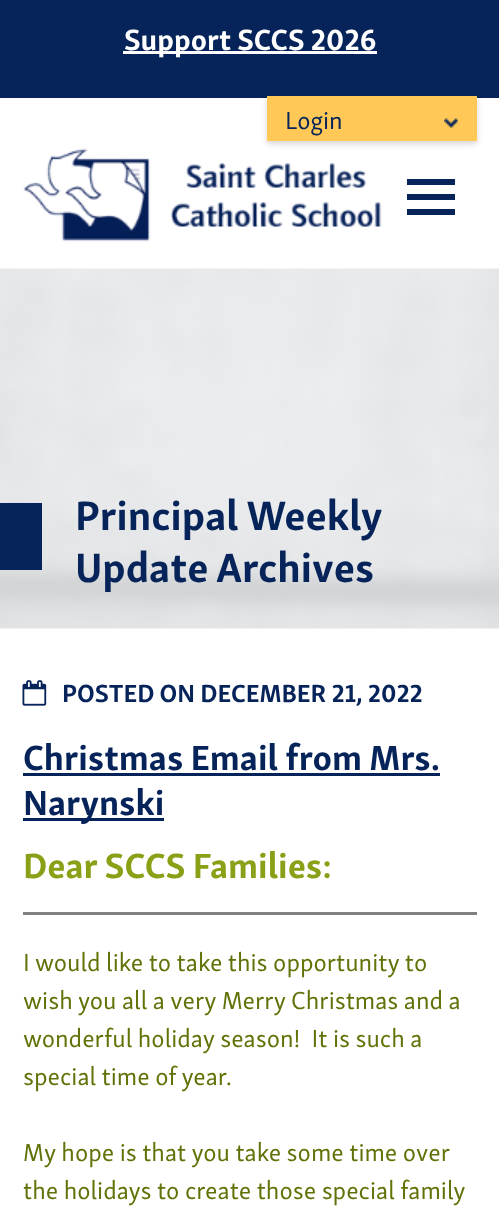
(async () => {
    const canvas = document.querySelector("canvas");
    canvas.width = 499;
    canvas.height = 1218;
    const context = canvas.getContext("2d");
    context.miterLimit = 4;
    context.fontKerning = "normal";
    function write(s, x, y, font, color) {
        context.font = font;
        context.fillStyle = color;
        context.fillText(s, x, y);
    }
    function block(x, y, w, h, color) {
        context.fillStyle = color;
        context.fillRect(x, y, w, h);
    }
    async function photo(src, x, y, w, h) {
        const img = new Image();
        img.src = src;
        await img.decode();
        context.drawImage(img, x, y, w, h);
    }

    block(0, 0, 499, 1218, "rgb(255, 255, 255)");
    block(0, 0, 499, 98, "rgb(6, 36, 89)");
    block(123, 51, 254, 3, "rgb(255, 255, 255)");
    write("Support SCCS 2026", 124, 50, "bold 30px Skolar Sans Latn", "rgb(255, 255, 255)");
    context.fillStyle = "rgba(0, 0, 0, 0.16)";
    context.filter = "blur(3px)";
    context.beginPath();
    context.rect(267, 99, 210, 45);
    context.fill();
    context.filter = "none";
    block(267, 96, 210, 45, "rgb(255, 200, 87)");
    write("Login", 285, 129, "25.5px Skolar Sans Latn", "rgb(6, 36, 89)");
    await photo("media/1.png", 444, 118, 14, 10);
    await photo("media/2.png", 23, 148, 359, 94);
    block(407, 179, 48, 6, "rgb(6, 36, 89)");
    block(407, 194, 48, 6, "rgb(6, 36, 89)");
    block(407, 209, 48, 6, "rgb(6, 36, 89)");
    await photo("media/3.png", 0, 268, 499, 361);
    block(0, 503, 42, 67, "rgb(6, 36, 89)");
    write("Principal Weekly", 75, 530, "bold 42px Skolar Sans Latn", "rgb(6, 36, 89)");
    write("Update Archives", 75, 582, "bold 42px Skolar Sans Latn", "rgb(6, 36, 89)");
    await photo("media/4.png", 22, 680, 25, 26);
    write("POSTED ON DECEMBER 21, 2022", 62, 702, "bold 25.5px Skolar Sans Latn", "rgb(6, 36, 89)");
    write("Christmas Email from Mrs.", 23, 770, "bold 36px Skolar Sans Latn", "rgb(6, 36, 89)");
    block(23, 773, 417, 3, "rgb(6, 36, 89)");
    block(23, 818, 141, 3, "rgb(6, 36, 89)");
    write("Narynski", 23, 815, "bold 36px Skolar Sans Latn", "rgb(6, 36, 89)");
    write("Dear SCCS Families:", 23, 878, "bold 36px Skolar Sans Latn", "rgb(138, 160, 23)");
    block(23, 912, 454, 3, "rgb(128, 128, 128)");
    write("I would like to take this opportunity to", 23, 971, "25.5px Skolar Sans Latn", "rgb(97, 115, 8)");
    write("wish you all a very Merry Christmas and a", 23, 1009, "25.5px Skolar Sans Latn", "rgb(97, 115, 8)");
    write("wonderful holiday season!  It is such a", 23, 1047, "25.5px Skolar Sans Latn", "rgb(97, 115, 8)");
    write("special time of year.", 23, 1085, "25.5px Skolar Sans Latn", "rgb(97, 115, 8)");
    write("My hope is that you take some time over", 23, 1161, "25.5px Skolar Sans Latn", "rgb(97, 115, 8)");
    write("the holidays to create those special family", 23, 1199, "25.5px Skolar Sans Latn", "rgb(97, 115, 8)");
})();
